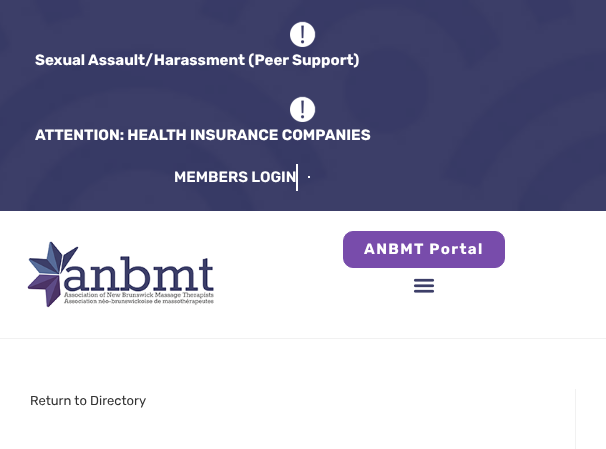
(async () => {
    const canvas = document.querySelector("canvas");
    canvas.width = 606;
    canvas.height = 449;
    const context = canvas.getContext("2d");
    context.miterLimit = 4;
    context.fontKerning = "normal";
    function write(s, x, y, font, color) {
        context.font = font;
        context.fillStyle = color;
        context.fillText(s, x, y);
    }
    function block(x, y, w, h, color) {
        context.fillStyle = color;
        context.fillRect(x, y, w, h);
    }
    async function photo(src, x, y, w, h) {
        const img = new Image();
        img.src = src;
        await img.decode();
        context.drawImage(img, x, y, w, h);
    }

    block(0, 0, 606, 449, "rgb(255, 255, 255)");
    block(0, 338, 606, 1, "rgb(241, 241, 241)");
    await photo("media/1.png", 0, 0, 606, 211);
    await photo("media/2.png", 290, 21, 26, 26);
    write("Sexual Assault/Harassment (Peer Support)", 35, 65, "bold 15px Rubik", "rgb(255, 255, 255)");
    await photo("media/3.png", 290, 96, 26, 26);
    write("ATTENTION: HEALTH INSURANCE COMPANIES", 35, 140, "bold 15px Rubik", "rgb(255, 255, 255)");
    write("MEMBERS LOGIN", 174, 182, "600 15px Rubik", "rgb(255, 255, 255)");
    block(296, 164, 2, 27, "rgb(255, 255, 255)");
    block(308, 176, 2, 2, "rgb(255, 255, 255)");
    await photo("media/4.png", 27, 241, 187, 67);
    context.fillStyle = "rgb(120, 76, 171)";
    context.beginPath();
    context.roundRect(343.5, 231.5, 161, 36, 9.5);
    context.fill();
    context.strokeStyle = "rgb(120, 76, 171)";
    context.stroke();
    context.letterSpacing = "1.4px";
    write("ANBMT Portal", 364, 254, "bold 15px Rubik", "rgb(255, 255, 255)");
    await photo("media/5.png", 413, 278, 22, 15);
    block(575, 389, 1, 60, "rgb(241, 241, 241)");
    context.letterSpacing = "0px";
    write("Return to Directory", 30, 405, "13px Rubik", "rgb(51, 51, 51)");
})();
